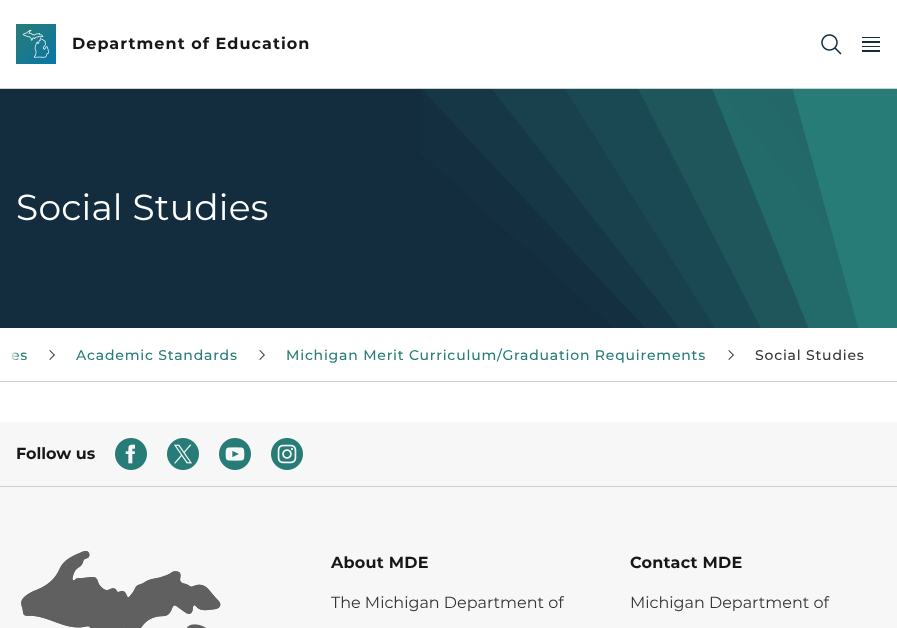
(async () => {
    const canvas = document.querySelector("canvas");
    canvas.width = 897;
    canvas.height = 628;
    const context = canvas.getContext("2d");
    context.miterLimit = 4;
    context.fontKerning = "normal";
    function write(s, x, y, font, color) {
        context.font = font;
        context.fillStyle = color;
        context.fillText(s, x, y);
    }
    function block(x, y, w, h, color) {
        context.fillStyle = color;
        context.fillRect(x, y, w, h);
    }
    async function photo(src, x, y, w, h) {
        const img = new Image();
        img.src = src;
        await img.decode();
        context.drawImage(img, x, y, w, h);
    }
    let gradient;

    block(0, 0, 897, 628, "rgb(255, 255, 255)");
    block(0, 88, 897, 1, "rgb(208, 208, 208)");
    await photo("media/1.png", 16, 24, 40, 40);
    context.letterSpacing = "1.05px";
    write("Department of Education", 72, 49, "bold 16px Montserrat", "rgb(22, 24, 24)");
    await photo("media/2.png", 821, 34, 21, 21);
    block(862, 50, 18, 2, "rgb(20, 45, 62)");
    block(862, 41, 18, 2, "rgb(20, 45, 62)");
    block(862, 46, 18, 1, "rgb(20, 45, 62)");
    block(862, 37, 18, 1, "rgb(20, 45, 62)");
    block(0, 89, 859, 239, "rgb(20, 45, 62)");
    context.letterSpacing = "0.25px";
    write("Social Studies", 16, 220, "36px Montserrat", "rgb(255, 255, 255)");
    await photo("media/3.png", 420, 89, 477, 239);
    block(0, 381, 897, 1, "rgb(208, 208, 208)");
    context.letterSpacing = "0.8px";
    write("es", 11, 360, "500 14px Montserrat", "rgb(39, 124, 120)");
    await photo("media/4.png", 49, 350, 6, 10);
    write("Academic Standards", 76, 360, "500 14px Montserrat", "rgb(39, 124, 120)");
    await photo("media/4.png", 259, 350, 6, 10);
    write("Michigan Merit Curriculum/Graduation Requirements", 286, 360, "500 14px Montserrat", "rgb(39, 124, 120)");
    await photo("media/4.png", 728, 350, 6, 10);
    write("Social Studies", 755, 360, "500 14px Montserrat", "rgb(53, 53, 53)");
    gradient = context.createLinearGradient(0, 355, 24, 355);
    gradient.addColorStop(0.4, "rgb(255, 255, 255)");
    gradient.addColorStop(0.8, "rgba(255, 255, 255, 0)");
    context.fillStyle = gradient;
    context.fillRect(11, 352, 8, 9);
    block(0, 422, 897, 64, "rgb(247, 247, 247)");
    block(0, 486, 897, 1, "rgb(208, 208, 208)");
    context.letterSpacing = "0px";
    write("Follow us", 16, 459, "bold 16px Montserrat", "rgb(22, 24, 24)");
    await photo("media/5.png", 115, 438, 32, 32);
    await photo("media/6.png", 167, 438, 32, 32);
    await photo("media/7.png", 219, 438, 32, 32);
    await photo("media/8.png", 271, 438, 32, 32);
    block(0, 487, 897, 141, "rgb(247, 247, 247)");
    await photo("media/9.png", 21, 551, 200, 77);
    context.letterSpacing = "0.25px";
    write("About MDE", 331, 568, "bold 16px Montserrat", "rgb(22, 24, 24)");
    context.letterSpacing = "0px";
    write("The Michigan Department of", 331, 608, "16px Montserrat", "rgb(53, 53, 53)");
    context.letterSpacing = "0.25px";
    write("Contact MDE", 630, 568, "bold 16px Montserrat", "rgb(22, 24, 24)");
    context.letterSpacing = "0px";
    write("Michigan Department of", 630, 608, "16px Montserrat", "rgb(53, 53, 53)");
})();
